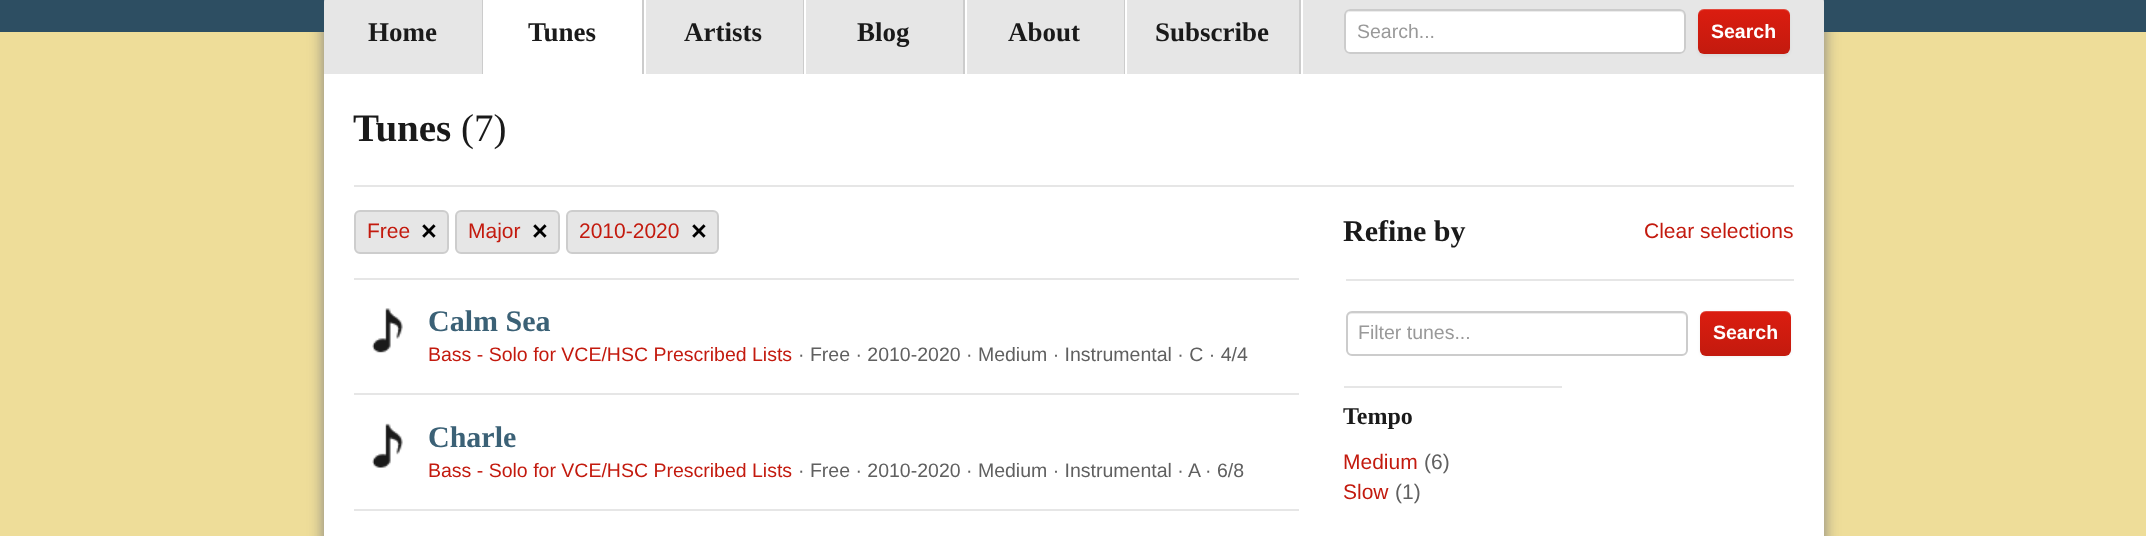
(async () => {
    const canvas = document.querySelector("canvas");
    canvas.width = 2146;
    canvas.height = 536;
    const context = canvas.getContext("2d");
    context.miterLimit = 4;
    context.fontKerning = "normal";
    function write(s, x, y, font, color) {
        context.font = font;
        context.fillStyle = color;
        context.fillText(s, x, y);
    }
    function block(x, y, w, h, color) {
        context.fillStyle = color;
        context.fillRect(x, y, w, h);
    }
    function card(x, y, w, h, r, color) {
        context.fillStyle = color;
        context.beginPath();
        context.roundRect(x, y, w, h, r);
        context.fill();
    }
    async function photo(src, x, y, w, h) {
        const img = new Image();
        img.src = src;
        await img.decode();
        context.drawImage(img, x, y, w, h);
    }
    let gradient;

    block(0, 0, 2146, 536, "rgb(238, 221, 153)");
    context.fillStyle = "rgb(127, 127, 127)";
    context.filter = "blur(7.5px)";
    context.beginPath();
    context.roundRect(324, -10, 1500, 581, 12);
    context.fill();
    context.filter = "none";
    block(0, 0, 2146, 32, "rgb(45, 78, 98)");
    block(324, 74, 1500, 462, "rgb(255, 255, 255)");
    context.fillStyle = "rgb(230, 230, 230)";
    context.beginPath();
    context.moveTo(336, -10);
    context.lineTo(1812, -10);
    context.bezierCurveTo(1818.5, -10, 1824, -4.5, 1824, 2);
    context.lineTo(1824, 74);
    context.lineTo(324, 74);
    context.lineTo(324, 2);
    context.bezierCurveTo(324, -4.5, 329.5, -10, 336, -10);
    context.closePath();
    context.fill();
    block(1299, 0, 2, 74, "rgb(204, 204, 204)");
    block(482, 0, 1, 74, "rgb(204, 204, 204)");
    write("Home", 368, 41, "bold 27px Liberation Serif", "rgb(26, 26, 26)");
    block(483, 0, 159, 74, "rgb(255, 255, 255)");
    block(642, 0, 2, 74, "rgb(204, 204, 204)");
    write("Tunes", 528, 41, "bold 27px Liberation Serif", "rgb(26, 26, 26)");
    block(803, 0, 1, 74, "rgb(204, 204, 204)");
    block(644, 0, 2, 74, "rgb(255, 255, 255)");
    write("Artists", 684, 41, "bold 27px Liberation Serif", "rgb(26, 26, 26)");
    block(963, 0, 2, 74, "rgb(204, 204, 204)");
    block(804, 0, 2, 74, "rgb(255, 255, 255)");
    write("Blog", 857, 41, "bold 27px Liberation Serif", "rgb(26, 26, 26)");
    block(1124, 0, 1, 74, "rgb(204, 204, 204)");
    block(965, 0, 2, 74, "rgb(255, 255, 255)");
    write("About", 1008, 41, "bold 27px Liberation Serif", "rgb(26, 26, 26)");
    block(1125, 0, 2, 74, "rgb(255, 255, 255)");
    write("Subscribe", 1155, 41, "bold 27px Liberation Serif", "rgb(26, 26, 26)");
    block(1301, 0, 2, 74, "rgb(255, 255, 255)");
    card(1344, 9, 342, 45, 6, "rgb(255, 255, 255)");
    context.fillStyle = "rgb(236, 236, 236)";
    context.beginPath();
    context.moveTo(1350, 12);
    context.lineTo(1680, 12);
    context.bezierCurveTo(1682, 12, 1684, 14, 1684, 16);
    context.lineTo(1684, 51);
    context.bezierCurveTo(1685, 50, 1685, 49, 1685, 48);
    context.lineTo(1685, 16);
    context.bezierCurveTo(1685, 13, 1683, 11, 1680, 11);
    context.lineTo(1351, 11);
    context.bezierCurveTo(1348, 11, 1346, 13, 1346, 16);
    context.bezierCurveTo(1346, 14, 1348, 12, 1350, 12);
    context.closePath();
    context.fill();
    context.beginPath();
    context.roundRect(1345, 10, 340, 43, 5);
    context.strokeStyle = "rgb(204, 204, 204)";
    context.lineWidth = 2;
    context.stroke();
    write("Search...", 1357, 38, "19.5px Liberation Sans", "rgb(153, 153, 153)");
    context.fillStyle = "rgba(0, 0, 0, 0.05)";
    context.filter = "blur(1.5px)";
    context.beginPath();
    context.roundRect(1698, 11, 92, 45, 6);
    context.fill();
    context.filter = "none";
    gradient = context.createLinearGradient(1744, 9, 1744, 54);
    gradient.addColorStop(0, "rgb(219, 29, 16)");
    gradient.addColorStop(1, "rgb(195, 26, 14)");
    context.fillStyle = gradient;
    context.beginPath();
    context.roundRect(1698, 9, 92, 45, 6);
    context.fill();
    context.fillStyle = "rgba(255, 255, 255, 0.2)";
    context.beginPath();
    context.moveTo(1704, 10);
    context.lineTo(1784, 10);
    context.bezierCurveTo(1787, 10, 1790, 13, 1790, 16);
    context.bezierCurveTo(1790, 6, 1777, 9, 1771, 9);
    context.lineTo(1717, 9);
    context.bezierCurveTo(1711, 9, 1698, 6, 1698, 16);
    context.bezierCurveTo(1698, 13, 1701, 10, 1704, 10);
    context.closePath();
    context.fill();
    write("Search", 1711, 38, "bold 19.5px Liberation Sans", "rgb(255, 255, 255)");
    block(354, 185, 1440, 2, "rgb(230, 230, 230)");
    write("Tunes", 353, 141, "bold 39px Liberation Serif", "rgb(26, 26, 26)");
    write("(7)", 461, 141, "39px Liberation Serif", "rgb(26, 26, 26)");
    block(354, 278, 945, 2, "rgb(230, 230, 230)");
    context.beginPath();
    context.roundRect(355, 211, 93, 42, 5);
    context.fill();
    context.strokeStyle = "rgb(205, 205, 205)";
    context.stroke();
    write("Free", 367, 238, "21px Liberation Sans", "rgb(195, 26, 14)");
    write("×", 421, 240, "bold 27px Liberation Sans", "rgb(0, 0, 0)");
    context.fillStyle = "rgb(230, 230, 230)";
    context.beginPath();
    context.roundRect(456, 211, 103, 42, 5);
    context.fill();
    context.stroke();
    write("Major", 468, 238, "21px Liberation Sans", "rgb(195, 26, 14)");
    write("×", 532, 240, "bold 27px Liberation Sans", "rgb(0, 0, 0)");
    context.fillStyle = "rgb(230, 230, 230)";
    context.beginPath();
    context.roundRect(567, 211, 151, 42, 5);
    context.fill();
    context.stroke();
    write("2010-2020", 579, 238, "21px Liberation Sans", "rgb(195, 26, 14)");
    write("×", 691, 240, "bold 27px Liberation Sans", "rgb(0, 0, 0)");
    await photo("media/1.png", 372, 308, 31, 45);
    block(354, 393, 945, 2, "rgb(230, 230, 230)");
    write("Calm Sea", 428, 331, "bold 30px Liberation Serif", "rgb(59, 97, 118)");
    write("Bass - Solo for VCE/HSC Prescribed Lists", 428, 361, "19.5px Liberation Sans", "rgb(195, 26, 14)");
    write("· Free · 2010-2020 · Medium · Instrumental · C · 4/4", 798, 361, "19.5px Liberation Sans", "rgb(96, 96, 96)");
    await photo("media/2.png", 372, 423, 31, 45);
    block(354, 509, 945, 2, "rgb(230, 230, 230)");
    write("Charle", 428, 447, "bold 30px Liberation Serif", "rgb(59, 97, 118)");
    write("Bass - Solo for VCE/HSC Prescribed Lists", 428, 477, "19.5px Liberation Sans", "rgb(195, 26, 14)");
    write("· Free · 2010-2020 · Medium · Instrumental ·", 798, 477, "19.5px Liberation Sans", "rgb(96, 96, 96)");
    write("A", 1188, 477, "19.5px Liberation Sans", "rgb(96, 96, 96)");
    write("· 6/8", 1205, 477, "19.5px Liberation Sans", "rgb(96, 96, 96)");
    write("Refine by", 1343, 241, "bold 30px Liberation Serif", "rgb(26, 26, 26)");
    write("Clear selections", 1644, 238, "21px Liberation Sans", "rgb(195, 26, 14)");
    block(1344, 279, 450, 2, "rgb(230, 230, 230)");
    block(1344, 279, 2, 2, "rgb(255, 255, 255)");
    context.fillStyle = "rgb(236, 236, 236)";
    context.beginPath();
    context.moveTo(1352, 314);
    context.lineTo(1682, 314);
    context.bezierCurveTo(1684, 314, 1686, 316, 1686, 318);
    context.bezierCurveTo(1686, 315, 1684, 312, 1681, 312);
    context.lineTo(1352, 312);
    context.bezierCurveTo(1349, 312, 1347, 315, 1347, 318);
    context.bezierCurveTo(1347, 316, 1349, 314, 1352, 314);
    context.closePath();
    context.fill();
    context.beginPath();
    context.roundRect(1347, 312, 340, 43, 5);
    context.strokeStyle = "rgb(204, 204, 204)";
    context.stroke();
    write("Filter tunes...", 1358, 339, "19.5px Liberation Sans", "rgb(153, 153, 153)");
    context.fillStyle = "rgba(0, 0, 0, 0.05)";
    context.filter = "blur(1.5px)";
    context.beginPath();
    context.roundRect(1700, 312, 91, 45, 6);
    context.fill();
    context.filter = "none";
    gradient = context.createLinearGradient(1745, 311, 1745, 356);
    gradient.addColorStop(0, "rgb(219, 29, 16)");
    gradient.addColorStop(1, "rgb(195, 26, 14)");
    context.fillStyle = gradient;
    context.beginPath();
    context.roundRect(1700, 311, 91, 45, 6);
    context.fill();
    context.fillStyle = "rgba(255, 255, 255, 0.2)";
    context.beginPath();
    context.moveTo(1706, 312);
    context.lineTo(1785, 312);
    context.bezierCurveTo(1788, 312, 1791, 315, 1791, 318);
    context.bezierCurveTo(1791, 308, 1779, 311, 1772, 311);
    context.lineTo(1719, 311);
    context.bezierCurveTo(1712, 311, 1700, 308, 1700, 318);
    context.bezierCurveTo(1700, 315, 1702, 312, 1706, 312);
    context.closePath();
    context.fill();
    write("Search", 1713, 339, "bold 19.5px Liberation Sans", "rgb(255, 255, 255)");
    block(1344, 386, 218, 2, "rgb(230, 230, 230)");
    write("Tempo", 1343, 424, "bold 24px Liberation Serif", "rgb(26, 26, 26)");
    write("Medium", 1343, 469, "21px Liberation Sans", "rgb(195, 26, 14)");
    write("(6)", 1424, 469, "21px Liberation Sans", "rgb(96, 96, 96)");
    write("Slow", 1343, 499, "21px Liberation Sans", "rgb(195, 26, 14)");
    write("(1)", 1395, 499, "21px Liberation Sans", "rgb(96, 96, 96)");
})();
